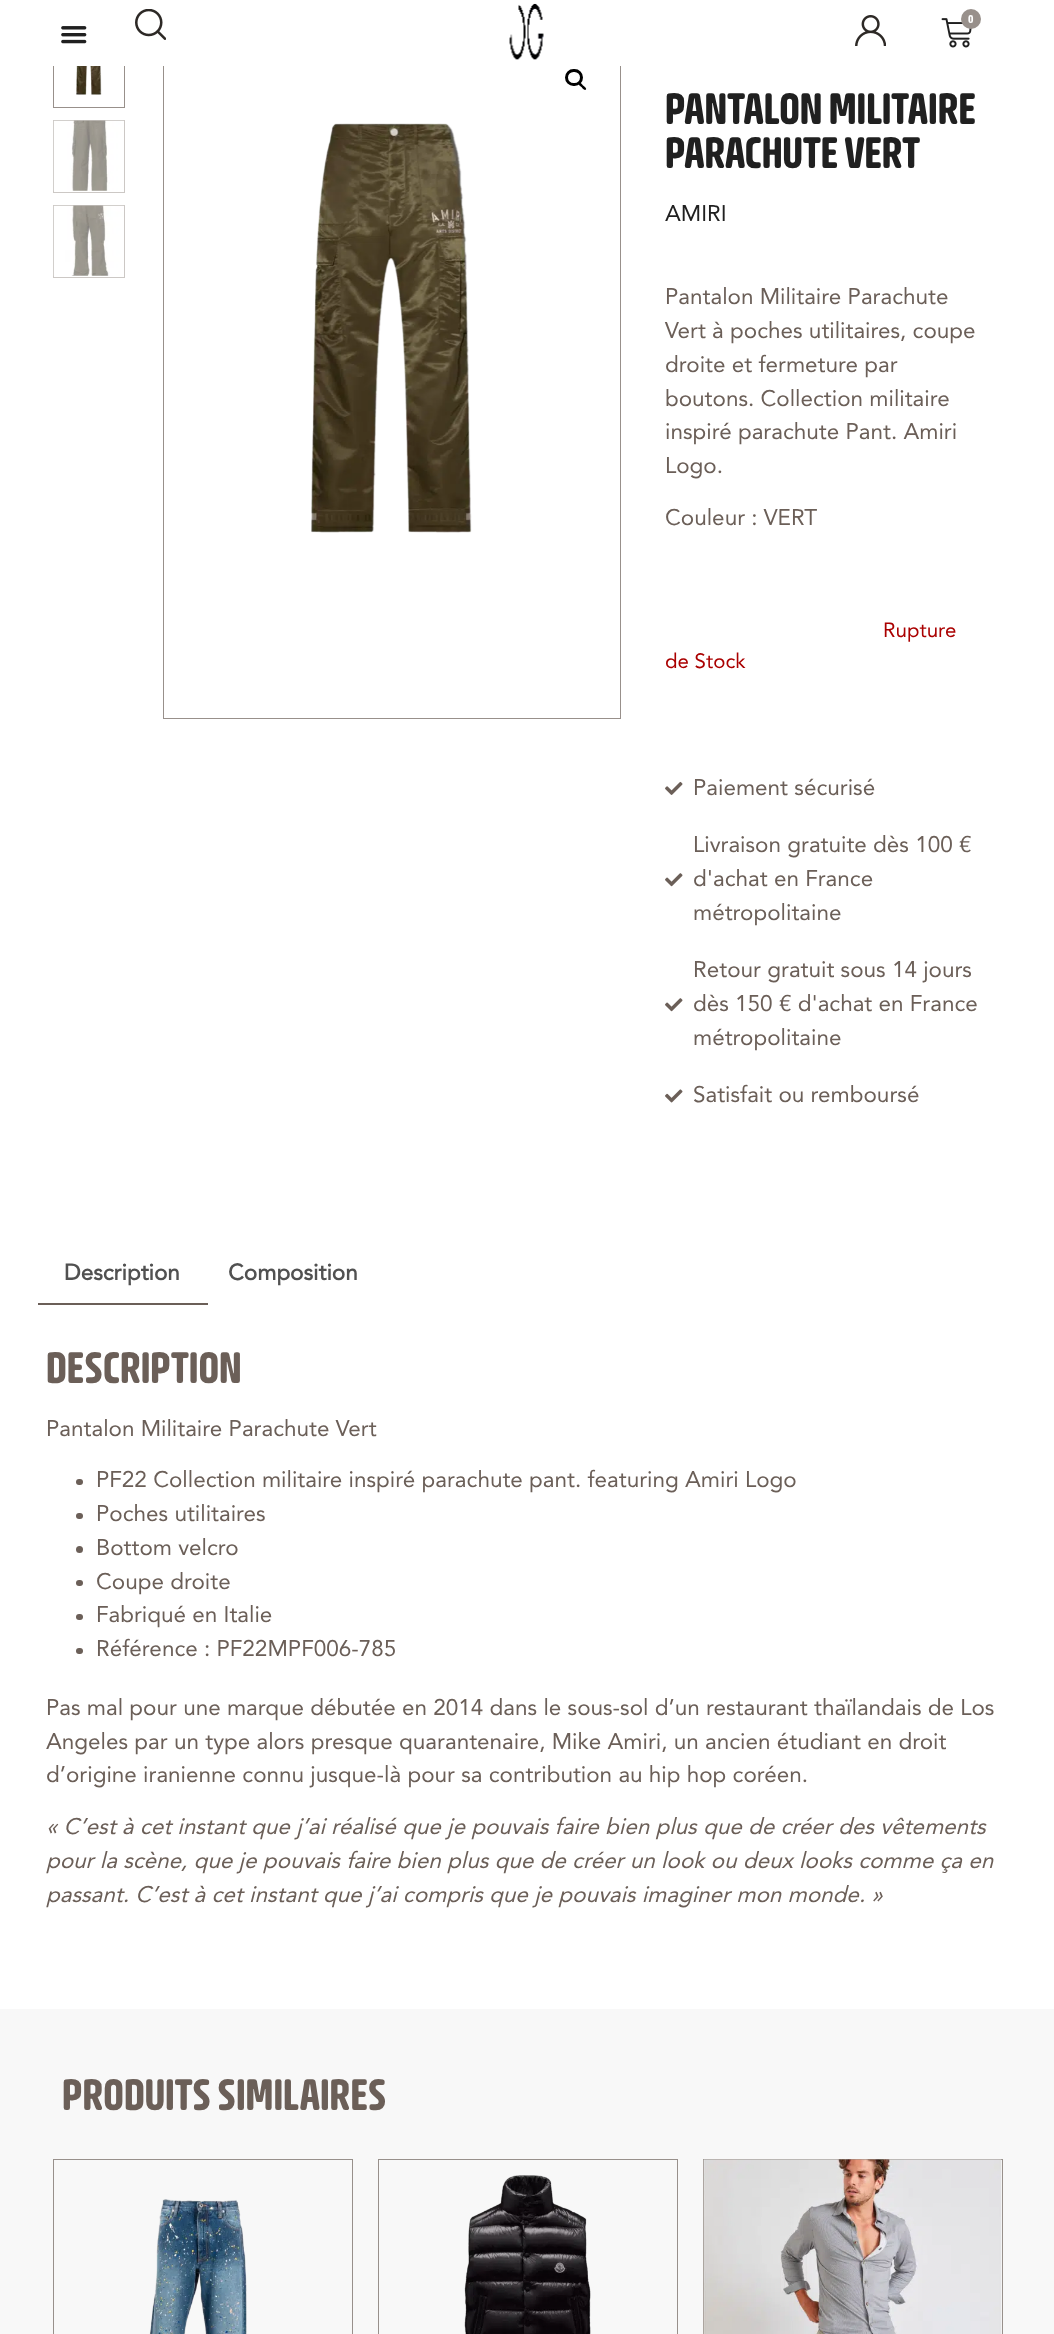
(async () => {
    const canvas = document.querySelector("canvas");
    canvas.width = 1054;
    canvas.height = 2334;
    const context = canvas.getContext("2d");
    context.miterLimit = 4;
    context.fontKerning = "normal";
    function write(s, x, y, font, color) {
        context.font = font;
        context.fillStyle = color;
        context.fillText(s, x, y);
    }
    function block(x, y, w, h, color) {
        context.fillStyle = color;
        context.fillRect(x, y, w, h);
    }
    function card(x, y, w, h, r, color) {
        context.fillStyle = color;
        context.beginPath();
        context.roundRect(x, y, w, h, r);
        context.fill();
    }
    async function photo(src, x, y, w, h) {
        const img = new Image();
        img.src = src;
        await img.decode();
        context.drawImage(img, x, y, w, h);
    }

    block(0, 0, 1054, 2334, "rgb(255, 255, 255)");
    context.strokeStyle = "rgb(152, 144, 139)";
    context.strokeRect(53.5, 35.5, 71, 72);
    context.strokeRect(163.5, 35.5, 457, 683);
    block(53, 35, 568, 31, "rgb(255, 255, 255)");
    await photo("media/1.png", 61, 26, 26, 18);
    await photo("media/2.png", 135, 9, 31, 31);
    await photo("media/3.png", 509, 3, 35, 57);
    await photo("media/4.png", 855, 15, 31, 31);
    await photo("media/5.png", 941, 18, 31, 30);
    context.fillStyle = "rgb(152, 144, 139)";
    context.beginPath();
    context.arc(971, 19, 10, 0, Math.PI * 2);
    context.fill();
    write("0", 968, 23, "600 12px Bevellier", "rgb(255, 255, 255)");
    await photo("media/6.png", 76, 66, 26, 29);
    context.strokeStyle = "rgb(204, 200, 197)";
    context.strokeRect(53.5, 120.5, 71, 72);
    await photo("media/7.png", 53, 120, 71, 71);
    context.strokeRect(53.5, 205.5, 71, 72);
    await photo("media/8.png", 53, 205, 71, 71);
    await photo("media/9.png", 311, 123, 161, 410);
    context.beginPath();
    context.roundRect(566.5, 70.5, 15, 14, 7);
    context.strokeStyle = "rgb(0, 0, 0)";
    context.lineWidth = 3;
    context.stroke();
    context.fillStyle = "rgb(0, 0, 0)";
    context.beginPath();
    context.moveTo(578.5, 82.5);
    context.bezierCurveTo(580, 81, 582.5, 84.5, 583, 85.5);
    context.bezierCurveTo(584, 86, 587, 88.5, 586, 89.5);
    context.bezierCurveTo(584.5, 91, 582, 88, 581.5, 87);
    context.bezierCurveTo(580.5, 86.5, 577.5, 84, 578.5, 82.5);
    context.closePath();
    context.fill();
    write("PANTALON MILITAIRE", 665, 124, "600 43.75px Bevellier", "rgb(32, 32, 32)");
    write("PARACHUTE VERT", 665, 168, "600 43.75px Bevellier", "rgb(32, 32, 32)");
    write("AMIRI", 665, 221, "22.5px Avenir", "rgb(32, 32, 32)");
    write("Pantalon Militaire Parachute", 665, 304, "22.5px Avenir", "rgb(107, 95, 88)");
    write("Vert à poches utilitaires, coupe", 665, 338, "22.5px Avenir", "rgb(107, 95, 88)");
    write("droite et fermeture par", 665, 372, "22.5px Avenir", "rgb(107, 95, 88)");
    write("boutons. Collection militaire", 665, 406, "22.5px Avenir", "rgb(107, 95, 88)");
    write("inspiré parachute Pant. Amiri", 665, 439, "22.5px Avenir", "rgb(107, 95, 88)");
    write("Logo.", 665, 473, "22.5px Avenir", "rgb(107, 95, 88)");
    write("Couleur : VERT", 665, 525, "22.5px Avenir", "rgb(107, 95, 88)");
    write("Rupture", 883, 637, "20.5px Avenir", "rgb(170, 0, 0)");
    write("de Stock", 665, 668, "20.5px Avenir", "rgb(170, 0, 0)");
    await photo("media/10.png", 665, 781, 18, 14);
    write("Paiement sécurisé", 693, 795, "22.5px Avenir", "rgb(107, 95, 88)");
    await photo("media/11.png", 665, 873, 18, 14);
    write("Livraison gratuite dès 100 €", 693, 852, "22.5px Avenir", "rgb(107, 95, 88)");
    write("d'achat en France", 693, 886, "22.5px Avenir", "rgb(107, 95, 88)");
    write("métropolitaine", 693, 920, "22.5px Avenir", "rgb(107, 95, 88)");
    await photo("media/11.png", 665, 998, 18, 14);
    write("Retour gratuit sous 14 jours", 693, 977, "22.5px Avenir", "rgb(107, 95, 88)");
    write("dès 150 € d'achat en France", 693, 1011, "22.5px Avenir", "rgb(107, 95, 88)");
    write("métropolitaine", 693, 1045, "22.5px Avenir", "rgb(107, 95, 88)");
    await photo("media/12.png", 665, 1089, 18, 14);
    write("Satisfait ou remboursé", 693, 1102, "22.5px Avenir", "rgb(107, 95, 88)");
    block(38, 1303, 170, 2, "rgb(107, 95, 88)");
    write("Description", 64, 1280, "bold 22.5px Avenir", "rgb(81, 81, 81)");
    write("Composition", 228, 1280, "bold 22.5px Avenir", "rgb(81, 81, 81)");
    write("DESCRIPTION", 46, 1383, "600 43.75px Bevellier", "rgb(107, 95, 88)");
    write("Pantalon Militaire Parachute Vert", 46, 1436, "22.5px Avenir", "rgb(107, 95, 88)");
    card(76, 1479, 7, 6, 3, "rgb(107, 95, 88)");
    write("PF22 Collection militaire inspiré parachute pant. featuring Amiri Logo", 96, 1487, "22.5px Avenir", "rgb(107, 95, 88)");
    card(76, 1513, 7, 6, 3, "rgb(107, 95, 88)");
    write("Poches utilitaires", 96, 1521, "22.5px Avenir", "rgb(107, 95, 88)");
    context.beginPath();
    context.arc(79.5, 1549.5, 3.5, 0, Math.PI * 2);
    context.fill();
    write("Bottom velcro", 96, 1555, "22.5px Avenir", "rgb(107, 95, 88)");
    card(76, 1580, 7, 6, 3, "rgb(107, 95, 88)");
    write("Coupe droite", 96, 1589, "22.5px Avenir", "rgb(107, 95, 88)");
    card(76, 1614, 7, 6, 3, "rgb(107, 95, 88)");
    write("Fabriqué en Italie", 96, 1622, "22.5px Avenir", "rgb(107, 95, 88)");
    card(76, 1648, 7, 6, 3, "rgb(107, 95, 88)");
    write("Référence : PF22MPF006-785", 96, 1656, "22.5px Avenir", "rgb(107, 95, 88)");
    write("Pas mal pour une marque débutée en 2014 dans le sous-sol d’un restaurant thaïlandais de Los", 46, 1715, "22.5px Avenir", "rgb(107, 95, 88)");
    write("Angeles par un type alors presque quarantenaire, Mike Amiri, un ancien étudiant en droit", 46, 1749, "22.5px Avenir", "rgb(107, 95, 88)");
    write("d’origine iranienne connu jusque-là pour sa contribution au hip hop coréen.", 46, 1782, "22.5px Avenir", "rgb(107, 95, 88)");
    write("« C’est à cet instant que j’ai réalisé que je pouvais faire bien plus que de créer des vêtements", 46, 1834, "italic 22.5px Avenir", "rgb(107, 95, 88)");
    write("pour la scène, que je pouvais faire bien plus que de créer un look ou deux looks comme ça en", 46, 1868, "italic 22.5px Avenir", "rgb(107, 95, 88)");
    write("passant. C’est à cet instant que j’ai compris que je pouvais imaginer mon monde. »", 46, 1902, "italic 22.5px Avenir", "rgb(107, 95, 88)");
    block(0, 2009, 1054, 325, "rgb(248, 248, 248)");
    write("PRODUITS SIMILAIRES", 62, 2110, "600 43.75px Bevellier", "rgb(107, 95, 88)");
    context.strokeStyle = "rgb(152, 144, 139)";
    context.lineWidth = 1;
    context.strokeRect(53.5, 2159.5, 299, 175);
    await photo("media/13.png", 149, 2199, 98, 135);
    context.strokeRect(378.5, 2159.5, 299, 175);
    await photo("media/14.png", 464, 2175, 127, 159);
    context.strokeRect(703.5, 2159.5, 299, 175);
    await photo("media/15.png", 703, 2159, 299, 175);
})();
